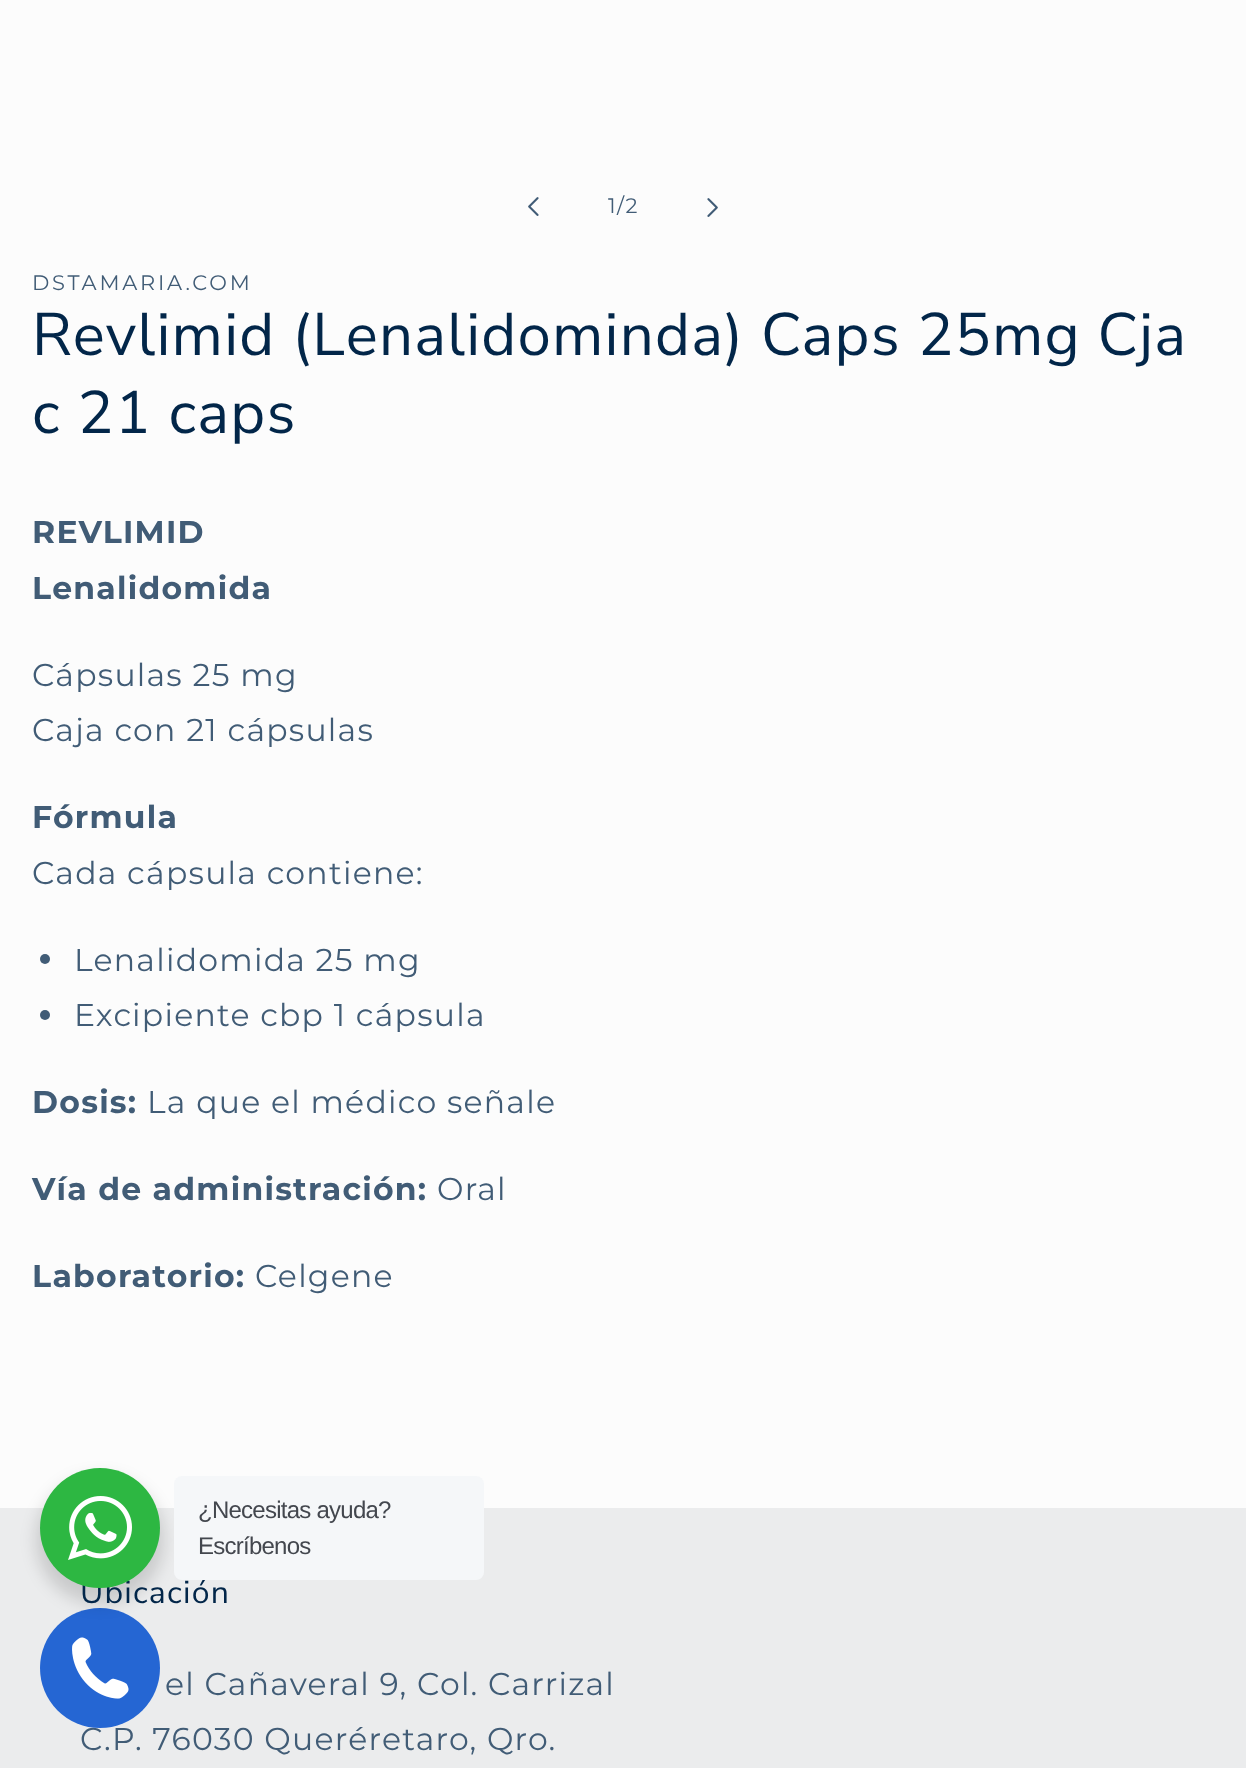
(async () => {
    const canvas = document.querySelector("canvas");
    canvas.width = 1246;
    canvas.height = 1768;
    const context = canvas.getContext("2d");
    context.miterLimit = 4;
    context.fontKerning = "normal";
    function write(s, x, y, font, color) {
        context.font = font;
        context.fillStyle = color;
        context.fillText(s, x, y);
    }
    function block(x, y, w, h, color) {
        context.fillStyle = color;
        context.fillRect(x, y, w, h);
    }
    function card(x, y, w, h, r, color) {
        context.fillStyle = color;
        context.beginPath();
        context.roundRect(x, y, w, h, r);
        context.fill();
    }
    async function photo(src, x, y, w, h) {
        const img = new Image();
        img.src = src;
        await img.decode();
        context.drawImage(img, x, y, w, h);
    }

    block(0, 0, 1246, 1768, "rgb(252, 252, 252)");
    await photo("media/1.png", 528, 197, 11, 19);
    context.letterSpacing = "1.5px";
    write("1/2", 608, 213, "21px Montserrat", "rgb(65, 92, 118)");
    await photo("media/2.png", 707, 198, 11, 19);
    context.letterSpacing = "2.75px";
    write("DSTAMARIA.COM", 32, 290, "21px Montserrat", "rgb(65, 92, 118)");
    context.letterSpacing = "1.2px";
    write("Revlimid (Lenalidominda) Caps 25mg Cja", 32, 355, "60px Nunito Sans", "rgb(2, 38, 73)");
    write("c 21 caps", 32, 433, "60px Nunito Sans", "rgb(2, 38, 73)");
    context.letterSpacing = "1.25px";
    write("REVLIMID", 32, 543, "bold 31.5px Montserrat", "rgb(65, 92, 118)");
    write("Lenalidomida", 32, 599, "bold 31.5px Montserrat", "rgb(65, 92, 118)");
    write("Cápsulas 25 mg", 32, 686, "31.5px Montserrat", "rgb(65, 92, 118)");
    write("Caja con 21 cápsulas", 32, 741, "31.5px Montserrat", "rgb(65, 92, 118)");
    write("Fórmula", 32, 828, "bold 31.5px Montserrat", "rgb(65, 92, 118)");
    write("Cada cápsula contiene:", 32, 884, "31.5px Montserrat", "rgb(65, 92, 118)");
    context.beginPath();
    context.arc(45, 959, 5, 0, Math.PI * 2);
    context.fill();
    write("Lenalidomida 25 mg", 74, 971, "31.5px Montserrat", "rgb(65, 92, 118)");
    context.beginPath();
    context.arc(45, 1015, 5, 0, Math.PI * 2);
    context.fill();
    write("Excipiente cbp 1 cápsula", 74, 1026, "31.5px Montserrat", "rgb(65, 92, 118)");
    write("Dosis:", 32, 1113, "bold 31.5px Montserrat", "rgb(65, 92, 118)");
    write("La que el médico señale", 147, 1113, "31.5px Montserrat", "rgb(65, 92, 118)");
    write("Vía de administración:", 32, 1200, "bold 31.5px Montserrat", "rgb(65, 92, 118)");
    write("Oral", 437, 1200, "31.5px Montserrat", "rgb(65, 92, 118)");
    write("Laboratorio:", 32, 1287, "bold 31.5px Montserrat", "rgb(65, 92, 118)");
    write("Celgene", 255, 1287, "31.5px Montserrat", "rgb(65, 92, 118)");
    block(0, 1508, 1246, 260, "rgb(235, 236, 237)");
    write("C.P. 76030 Queréretaro, Qro.", 80, 1750, "31.5px Montserrat", "rgb(65, 92, 118)");
    context.fillStyle = "rgb(37, 102, 211)";
    context.beginPath();
    context.arc(100, 1668, 60, 0, Math.PI * 2);
    context.fill();
    context.fillStyle = "rgba(0, 0, 0, 0.14)";
    context.filter = "blur(8px)";
    context.beginPath();
    context.roundRect(36, 1476, 128, 128, 64);
    context.fill();
    context.filter = "none";
    context.letterSpacing = "1.2px";
    write("Ubicación", 80, 1603, "32px Nunito Sans", "rgb(2, 38, 73)");
    context.fillStyle = "rgb(45, 183, 66)";
    context.beginPath();
    context.arc(100, 1528, 60, 0, Math.PI * 2);
    context.fill();
    await photo("media/3.png", 68, 1496, 64, 64);
    card(174, 1476, 310, 104, 8, "rgb(245, 247, 249)");
    context.letterSpacing = "-0.75px";
    write("¿Necesitas ayuda?", 198, 1518, "24px Liberation Sans", "rgb(67, 71, 78)");
    write("Escríbenos", 198, 1554, "24px Liberation Sans", "rgb(67, 71, 78)");
    context.letterSpacing = "1.25px";
    write("el Cañaveral 9, Col. Carrizal", 165, 1695, "31.5px Montserrat", "rgb(65, 92, 118)");
    await photo("media/4.png", 72, 1637, 57, 62);
})();
